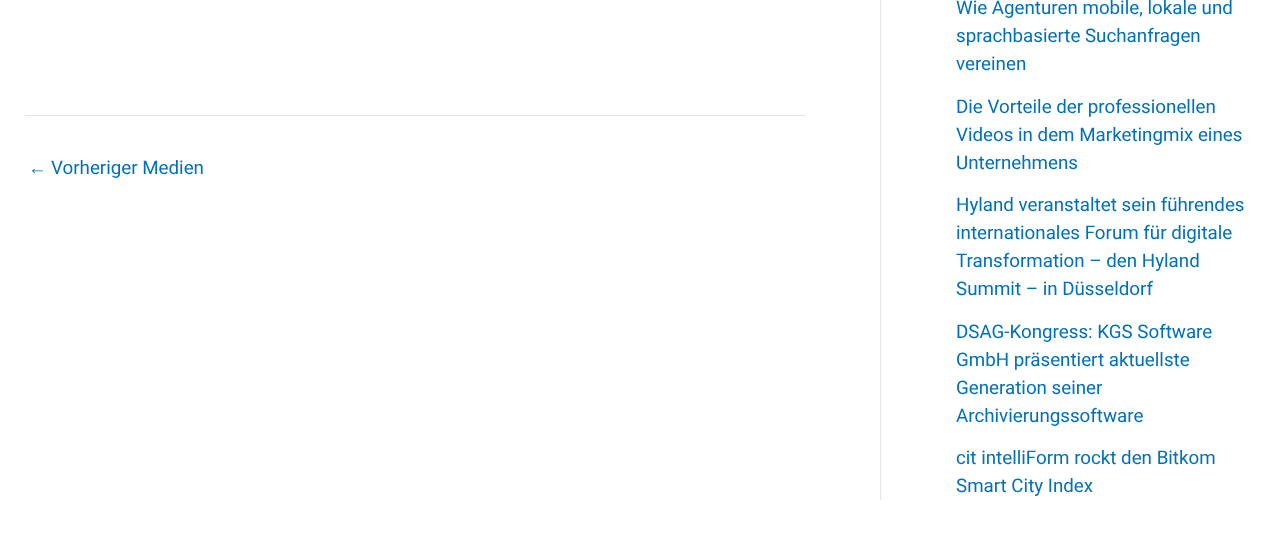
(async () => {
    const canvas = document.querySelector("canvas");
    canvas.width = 1272;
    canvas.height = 535;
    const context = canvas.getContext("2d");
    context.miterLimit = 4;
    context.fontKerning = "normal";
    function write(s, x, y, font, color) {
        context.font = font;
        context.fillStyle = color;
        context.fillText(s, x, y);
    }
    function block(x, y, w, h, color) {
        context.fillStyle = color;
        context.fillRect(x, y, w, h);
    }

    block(0, 0, 1272, 535, "rgb(255, 255, 255)");
    block(25, 115, 780, 1, "rgb(229, 229, 229)");
    write("←", 28, 174, "18.75px Liberation Sans", "rgb(1, 112, 185)");
    write("Vorheriger Medien", 51, 174, "18.75px Roboto", "rgb(1, 112, 185)");
    block(880, 0, 1, 500, "rgb(229, 229, 229)");
    write("Wie Agenturen mobile, lokale und", 956, 14, "18.75px Roboto", "rgb(1, 112, 185)");
    write("sprachbasierte Suchanfragen", 956, 42, "18.75px Roboto", "rgb(1, 112, 185)");
    write("vereinen", 956, 70, "18.75px Roboto", "rgb(1, 112, 185)");
    write("Die Vorteile der professionellen", 956, 113, "18.75px Roboto", "rgb(1, 112, 185)");
    write("Videos in dem Marketingmix eines", 956, 141, "18.75px Roboto", "rgb(1, 112, 185)");
    write("Unternehmens", 956, 169, "18.75px Roboto", "rgb(1, 112, 185)");
    write("Hyland veranstaltet sein führendes", 956, 211, "18.75px Roboto", "rgb(1, 112, 185)");
    write("internationales Forum für digitale", 956, 239, "18.75px Roboto", "rgb(1, 112, 185)");
    write("Transformation – den Hyland", 956, 267, "18.75px Roboto", "rgb(1, 112, 185)");
    write("Summit – in Düsseldorf", 956, 295, "18.75px Roboto", "rgb(1, 112, 185)");
    write("DSAG-Kongress: KGS Software", 956, 338, "18.75px Roboto", "rgb(1, 112, 185)");
    write("GmbH präsentiert aktuellste", 956, 366, "18.75px Roboto", "rgb(1, 112, 185)");
    write("Generation seiner", 956, 394, "18.75px Roboto", "rgb(1, 112, 185)");
    write("Archivierungssoftware", 956, 422, "18.75px Roboto", "rgb(1, 112, 185)");
    write("cit intelliForm rockt den Bitkom", 956, 464, "18.75px Roboto", "rgb(1, 112, 185)");
    write("Smart City Index", 956, 492, "18.75px Roboto", "rgb(1, 112, 185)");
})();
